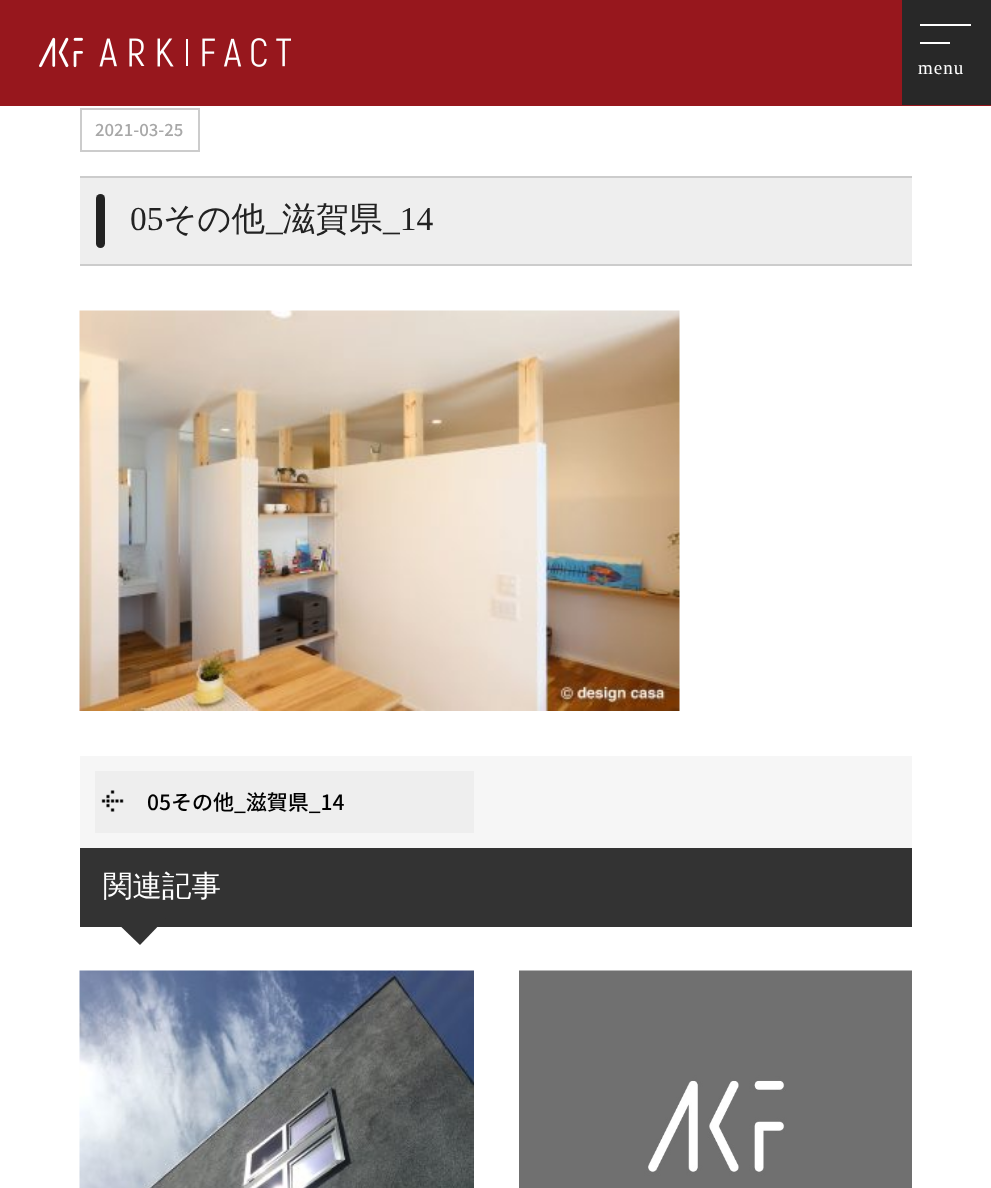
(async () => {
    const canvas = document.querySelector("canvas");
    canvas.width = 991;
    canvas.height = 1188;
    const context = canvas.getContext("2d");
    context.miterLimit = 4;
    context.fontKerning = "normal";
    function write(s, x, y, font, color) {
        context.font = font;
        context.fillStyle = color;
        context.fillText(s, x, y);
    }
    function block(x, y, w, h, color) {
        context.fillStyle = color;
        context.fillRect(x, y, w, h);
    }
    function card(x, y, w, h, r, color) {
        context.fillStyle = color;
        context.beginPath();
        context.roundRect(x, y, w, h, r);
        context.fill();
    }
    async function photo(src, x, y, w, h) {
        const img = new Image();
        img.src = src;
        await img.decode();
        context.drawImage(img, x, y, w, h);
    }

    block(0, 0, 991, 1188, "rgb(255, 255, 255)");
    block(0, 0, 902, 104, "rgb(151, 23, 29)");
    block(0, 104, 991, 2, "rgb(151, 23, 29)");
    await photo("media/1.png", 39, 37, 252, 31);
    block(902, 0, 89, 105, "rgb(40, 40, 40)");
    block(920, 24, 51, 2, "rgb(255, 255, 255)");
    block(920, 42, 30, 2, "rgb(255, 255, 255)");
    context.letterSpacing = "1px";
    write("menu", 918, 74, "19px Liberation Serif", "rgb(255, 255, 255)");
    context.strokeStyle = "rgb(204, 204, 204)";
    context.lineWidth = 2;
    context.strokeRect(81, 109, 118, 42);
    context.letterSpacing = "0px";
    write("2021-03-25", 95, 136, "500 16.75px Noto Sans CJK JP", "rgb(168, 168, 168)");
    block(80, 178, 832, 86, "rgb(238, 238, 238)");
    block(80, 176, 832, 2, "rgb(204, 204, 204)");
    block(80, 264, 832, 2, "rgb(204, 204, 204)");
    card(96, 194, 9, 54, 4.5, "rgb(34, 34, 34)");
    write("05", 130, 230, "33.5px Liberation Serif", "rgb(34, 34, 34)");
    write("その他", 163, 230, "500 33.5px WenQuanYi Zen Hei", "rgb(34, 34, 34)");
    write("_", 266, 230, "33.5px Liberation Serif", "rgb(34, 34, 34)");
    write("滋賀県", 282, 230, "500 33.5px WenQuanYi Zen Hei", "rgb(34, 34, 34)");
    write("_14", 383, 230, "33.5px Liberation Serif", "rgb(34, 34, 34)");
    await photo("media/2.png", 79, 310, 601, 401);
    block(80, 756, 832, 92, "rgb(246, 246, 246)");
    block(95, 771, 379, 62, "rgb(238, 238, 238)");
    await photo("media/3.png", 101, 790, 23, 22);
    write("05その他_滋賀県_14", 147, 810, "500 21px Noto Sans CJK JP", "rgb(0, 0, 0)");
    block(80, 848, 832, 79, "rgb(51, 51, 51)");
    write("関連記事", 103, 896, "500 29.5px WenQuanYi Zen Hei", "rgb(255, 255, 255)");
    context.fillStyle = "rgb(51, 51, 51)";
    context.beginPath();
    context.moveTo(112, 918);
    context.lineTo(166, 918);
    context.lineTo(140, 945);
    context.closePath();
    context.fill();
    await photo("media/4.png", 79, 970, 395, 218);
    await photo("media/5.png", 519, 970, 393, 218);
})();
